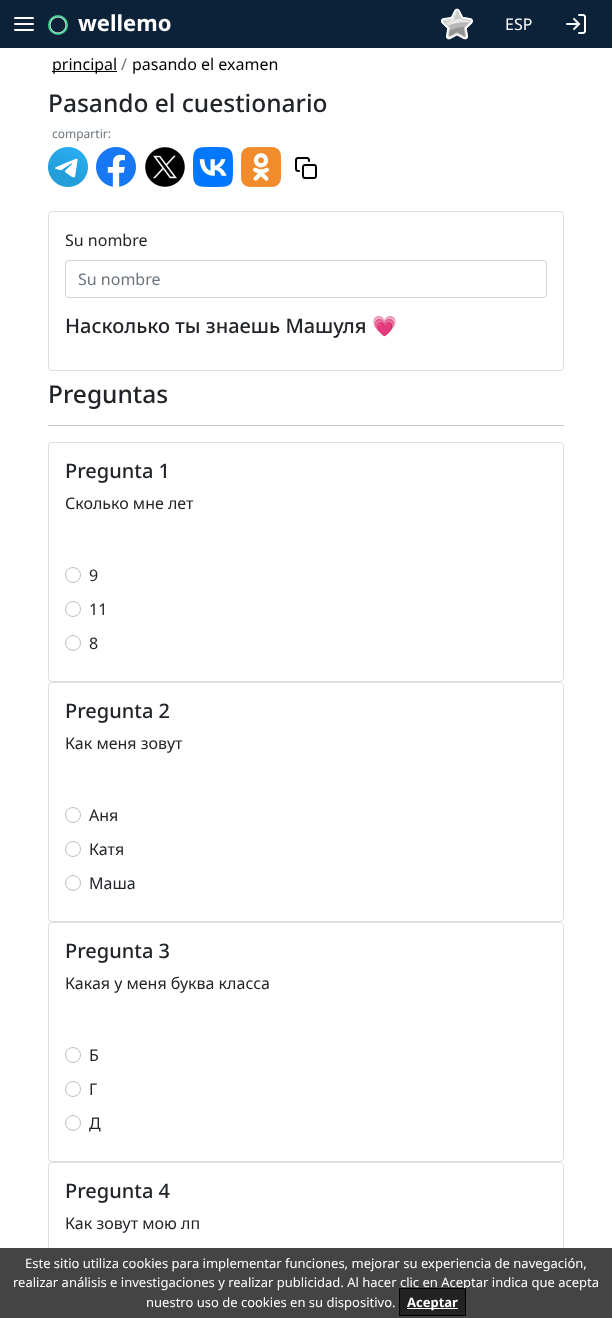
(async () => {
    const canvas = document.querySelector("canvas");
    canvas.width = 612;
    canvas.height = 1318;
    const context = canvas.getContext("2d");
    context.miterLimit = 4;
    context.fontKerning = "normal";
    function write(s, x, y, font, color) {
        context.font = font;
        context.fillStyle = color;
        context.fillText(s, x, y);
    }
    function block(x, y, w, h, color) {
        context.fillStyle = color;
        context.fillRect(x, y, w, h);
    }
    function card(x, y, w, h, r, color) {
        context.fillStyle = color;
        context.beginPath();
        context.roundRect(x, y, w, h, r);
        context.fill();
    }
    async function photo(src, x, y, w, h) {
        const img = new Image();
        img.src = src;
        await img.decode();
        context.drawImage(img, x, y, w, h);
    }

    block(0, 0, 612, 1318, "rgb(255, 255, 255)");
    block(0, 0, 612, 48, "rgb(11, 34, 57)");
    card(14, 17, 20, 2, 1, "rgb(252, 252, 253)");
    card(14, 23, 20, 2, 1, "rgb(252, 252, 253)");
    card(14, 29, 20, 2, 1, "rgb(252, 252, 253)");
    context.fillStyle = "rgb(73, 210, 148)";
    context.beginPath();
    context.arc(58, 25, 10, 0, Math.PI * 2);
    context.fill();
    write("wellemo", 78, 31, "bold 22px Noto Sans", "rgb(255, 255, 255)");
    context.beginPath();
    context.arc(58, 25, 8, 0, Math.PI * 2);
    context.fill();
    context.fillStyle = "rgb(12, 34, 57)";
    context.beginPath();
    context.arc(58, 25, 7.5, 0, Math.PI * 2);
    context.fill();
    await photo("media/1.png", 441, 8, 32, 32);
    write("ESP", 505, 30, "16px Noto Sans", "rgb(255, 255, 255)");
    await photo("media/2.png", 566, 14, 20, 20);
    block(52, 71, 65, 1, "rgb(0, 0, 0)");
    write("principal", 52, 70, "16px Noto Sans", "rgb(0, 0, 0)");
    write("/", 121, 70, "16px Noto Sans", "rgb(108, 117, 125)");
    write("pasando el examen", 132, 70, "16px Noto Sans", "rgb(0, 0, 0)");
    write("Pasando el cuestionario", 48, 112, "500 24.5px Noto Sans", "rgb(33, 37, 41)");
    write("compartir:", 52, 138, "12px Noto Sans", "rgb(108, 117, 125)");
    await photo("media/3.png", 48, 147, 40, 40);
    await photo("media/4.png", 96, 147, 40, 40);
    await photo("media/5.png", 145, 147, 40, 40);
    await photo("media/6.png", 193, 147, 40, 40);
    await photo("media/7.png", 241, 147, 40, 40);
    await photo("media/8.png", 295, 157, 22, 22);
    context.beginPath();
    context.roundRect(48.5, 211.5, 515, 159, 3.5);
    context.strokeStyle = "rgb(223, 223, 223)";
    context.stroke();
    write("Su nombre", 65, 246, "16px Noto Sans", "rgb(33, 37, 41)");
    context.beginPath();
    context.roundRect(65.5, 260.5, 481, 37, 3.5);
    context.strokeStyle = "rgb(206, 212, 218)";
    context.stroke();
    write("Su nombre", 78, 285, "16px Noto Sans", "rgb(108, 117, 125)");
    write("Насколько ты знаешь Машуля", 65, 333, "500 20px Noto Sans", "rgb(33, 37, 41)");
    write("💗", 372, 333, "20px Noto Color Emoji", "rgb(33, 37, 41)");
    write("Preguntas", 48, 403, "500 24.5px Noto Sans", "rgb(33, 37, 41)");
    block(48, 425, 516, 1, "rgb(200, 201, 202)");
    context.beginPath();
    context.roundRect(48.5, 442.5, 515, 239, 3.5);
    context.strokeStyle = "rgb(223, 223, 223)";
    context.stroke();
    write("Pregunta 1", 65, 478, "500 20px Noto Sans", "rgb(33, 37, 41)");
    write("Сколько мне лет", 65, 509, "16px Noto Sans", "rgb(33, 37, 41)");
    context.beginPath();
    context.arc(73, 575, 7.5, 0, Math.PI * 2);
    context.strokeStyle = "rgb(191, 191, 191)";
    context.stroke();
    write("9", 89, 581, "16px Noto Sans", "rgb(33, 37, 41)");
    context.beginPath();
    context.arc(73, 609, 7.5, 0, Math.PI * 2);
    context.stroke();
    write("11", 89, 615, "16px Noto Sans", "rgb(33, 37, 41)");
    context.beginPath();
    context.arc(73, 643, 7.5, 0, Math.PI * 2);
    context.stroke();
    write("8", 89, 649, "16px Noto Sans", "rgb(33, 37, 41)");
    context.beginPath();
    context.roundRect(48.5, 682.5, 515, 239, 3.5);
    context.strokeStyle = "rgb(223, 223, 223)";
    context.stroke();
    write("Pregunta 2", 65, 718, "500 20px Noto Sans", "rgb(33, 37, 41)");
    write("Как меня зовут", 65, 749, "16px Noto Sans", "rgb(33, 37, 41)");
    context.beginPath();
    context.arc(73, 815, 7.5, 0, Math.PI * 2);
    context.strokeStyle = "rgb(191, 191, 191)";
    context.stroke();
    write("Аня", 89, 821, "16px Noto Sans", "rgb(33, 37, 41)");
    context.beginPath();
    context.arc(73, 849, 7.5, 0, Math.PI * 2);
    context.stroke();
    write("Катя", 89, 855, "16px Noto Sans", "rgb(33, 37, 41)");
    context.beginPath();
    context.arc(73, 883, 7.5, 0, Math.PI * 2);
    context.stroke();
    write("Маша", 89, 889, "16px Noto Sans", "rgb(33, 37, 41)");
    context.beginPath();
    context.roundRect(48.5, 922.5, 515, 239, 3.5);
    context.strokeStyle = "rgb(223, 223, 223)";
    context.stroke();
    write("Pregunta 3", 65, 958, "500 20px Noto Sans", "rgb(33, 37, 41)");
    write("Какая у меня буква класса", 65, 989, "16px Noto Sans", "rgb(33, 37, 41)");
    context.beginPath();
    context.arc(73, 1055, 7.5, 0, Math.PI * 2);
    context.strokeStyle = "rgb(191, 191, 191)";
    context.stroke();
    write("Б", 89, 1061, "16px Noto Sans", "rgb(33, 37, 41)");
    context.beginPath();
    context.arc(73, 1089, 7.5, 0, Math.PI * 2);
    context.stroke();
    write("Г", 89, 1095, "16px Noto Sans", "rgb(33, 37, 41)");
    context.beginPath();
    context.arc(73, 1123, 7.5, 0, Math.PI * 2);
    context.stroke();
    write("Д", 89, 1129, "16px Noto Sans", "rgb(33, 37, 41)");
    context.beginPath();
    context.roundRect(48.5, 1162.5, 515, 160, 3.5);
    context.strokeStyle = "rgb(223, 223, 223)";
    context.stroke();
    write("Pregunta 4", 65, 1198, "500 20px Noto Sans", "rgb(33, 37, 41)");
    write("Как зовут мою лп", 65, 1229, "16px Noto Sans", "rgb(33, 37, 41)");
    block(0, 1248, 612, 70, "rgb(68, 68, 68)");
    write("Este sitio utiliza cookies para implementar funciones, mejorar su experiencia de navegación,", 25, 1268, "13px Noto Sans", "rgb(255, 255, 255)");
    write("realizar análisis e investigaciones y realizar publicidad. Al hacer clic en Aceptar indica que acepta", 13, 1287, "13px Noto Sans", "rgb(255, 255, 255)");
    write("nuestro uso de cookies en su dispositivo.", 146, 1307, "13px Noto Sans", "rgb(255, 255, 255)");
    context.fillStyle = "rgb(34, 34, 34)";
    context.beginPath();
    context.rect(399.5, 1288.5, 66, 27);
    context.fill();
    context.strokeStyle = "rgb(0, 0, 0)";
    context.stroke();
    block(407, 1308, 51, 1, "rgb(255, 255, 255)");
    write("Aceptar", 407, 1307, "bold 13px Noto Sans", "rgb(255, 255, 255)");
})();
